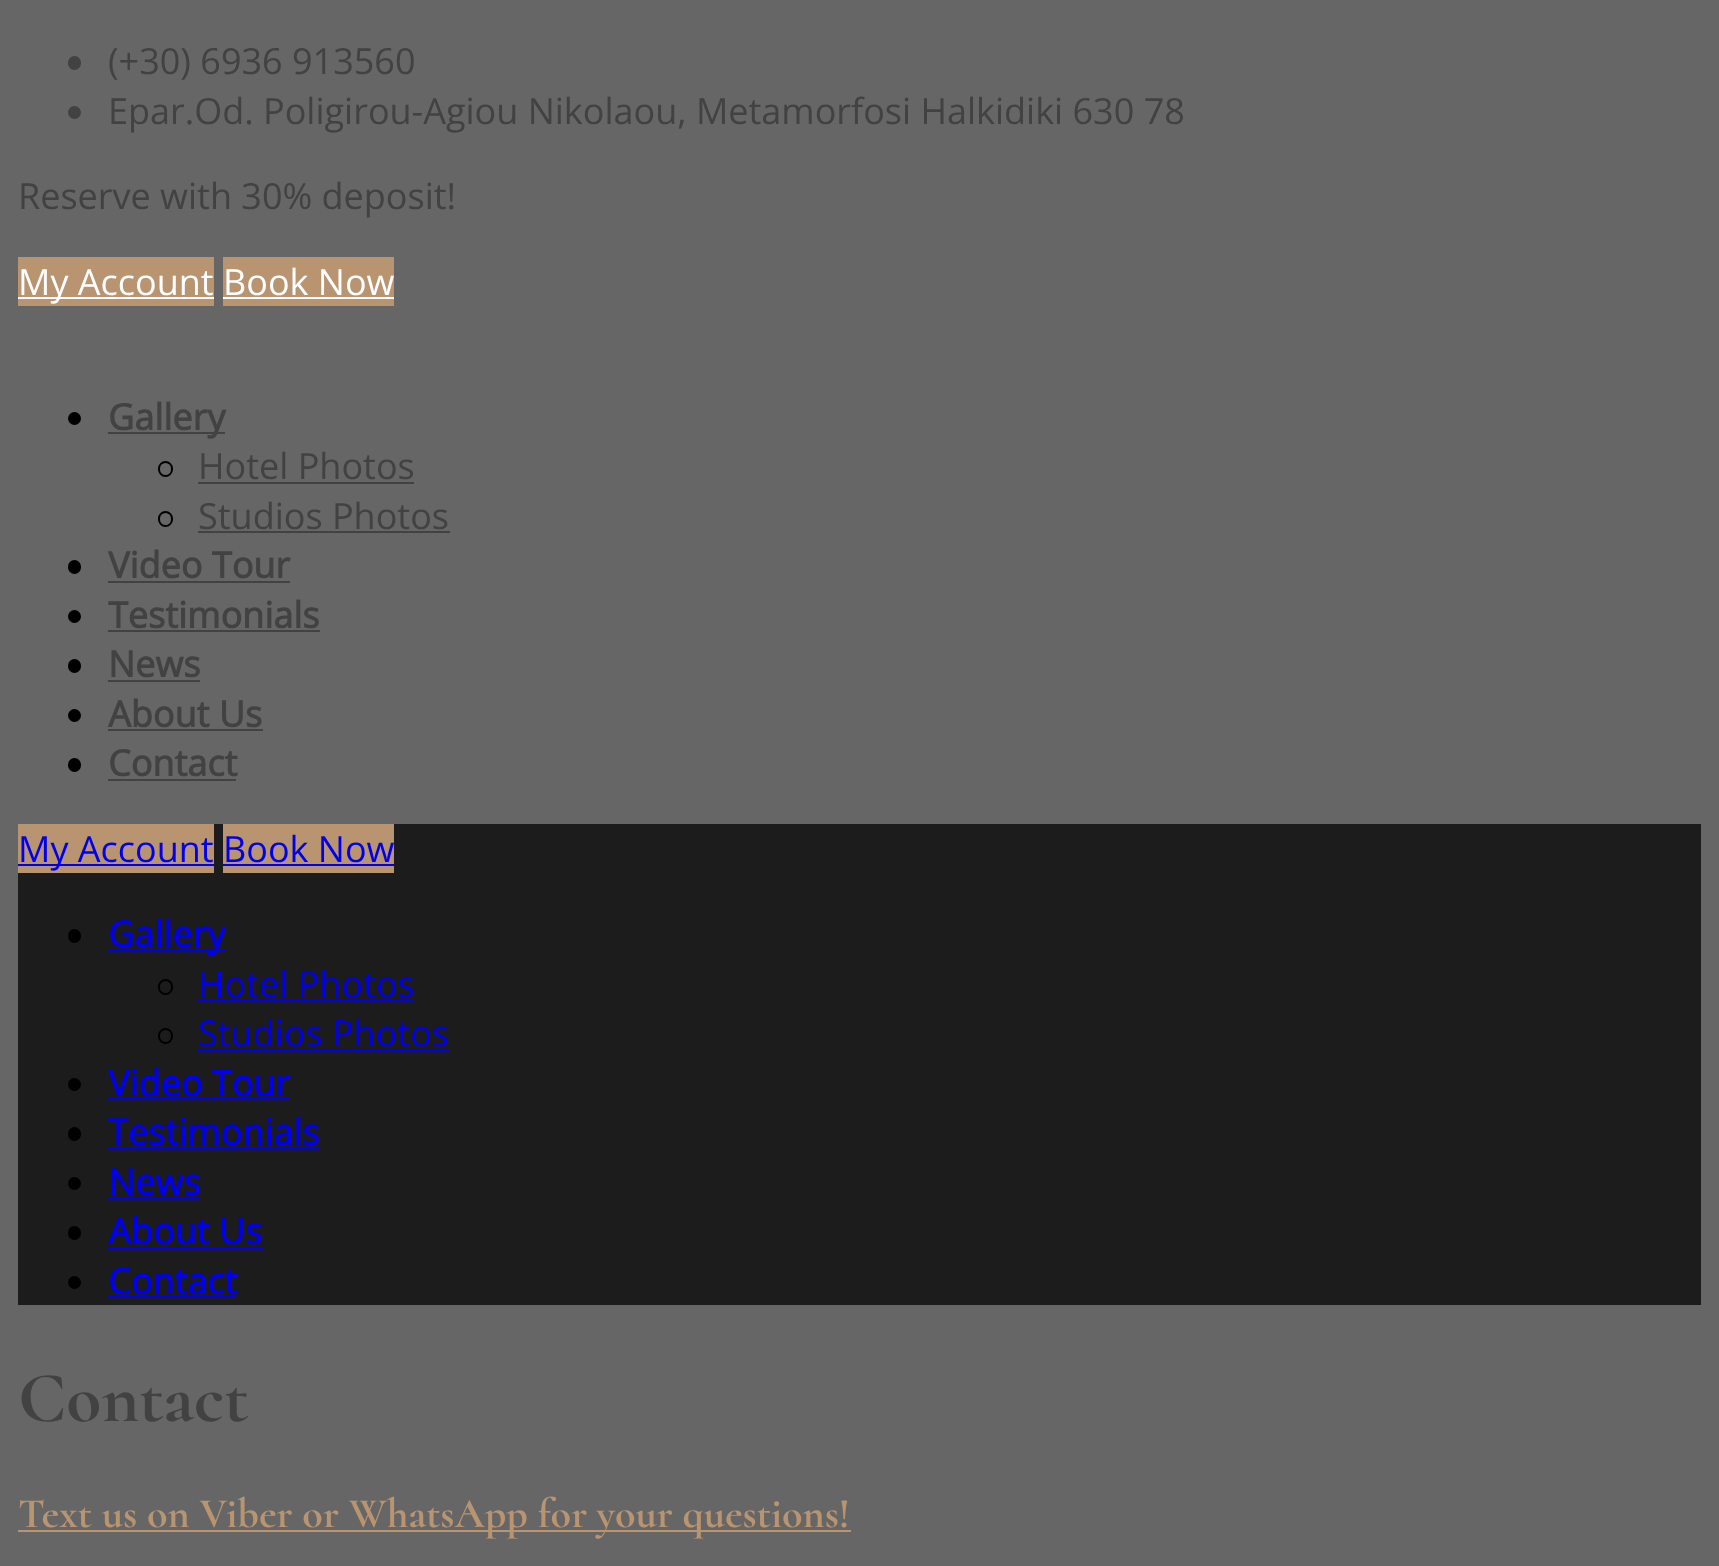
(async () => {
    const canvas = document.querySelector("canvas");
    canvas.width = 1719;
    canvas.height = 1566;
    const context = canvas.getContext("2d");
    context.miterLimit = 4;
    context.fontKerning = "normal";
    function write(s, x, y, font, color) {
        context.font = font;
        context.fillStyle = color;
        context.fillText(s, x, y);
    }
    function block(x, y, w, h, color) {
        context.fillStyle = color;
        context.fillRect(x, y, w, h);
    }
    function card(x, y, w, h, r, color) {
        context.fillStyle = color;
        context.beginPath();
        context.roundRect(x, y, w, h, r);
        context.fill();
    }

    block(0, 0, 1719, 1566, "rgb(102, 102, 102)");
    card(68, 56, 13, 14, 6.5, "rgb(66, 66, 66)");
    write("(+30) 6936 913560", 108, 74, "36px Open Sans", "rgb(66, 66, 66)");
    context.beginPath();
    context.arc(74.5, 112.5, 6.5, 0, Math.PI * 2);
    context.fill();
    write("Epar.Od. Poligirou-Agiou Nikolaou, Metamorfosi Halkidiki 630 78", 108, 124, "36px Open Sans", "rgb(66, 66, 66)");
    write("Reserve with 30% deposit!", 18, 209, "36px Open Sans", "rgb(66, 66, 66)");
    block(18, 257, 196, 49, "rgb(184, 148, 112)");
    block(18, 297, 196, 2, "rgb(255, 255, 255)");
    write("My Account", 18, 295, "36px Open Sans", "rgb(255, 255, 255)");
    block(223, 257, 171, 49, "rgb(184, 148, 112)");
    write("Book Now", 223, 295, "36px Open Sans", "rgb(255, 255, 255)");
    block(223, 297, 171, 2, "rgb(255, 255, 255)");
    context.fillStyle = "rgb(0, 0, 0)";
    context.beginPath();
    context.arc(74.5, 418.5, 6.5, 0, Math.PI * 2);
    context.fill();
    block(108, 432, 117, 2, "rgb(66, 66, 66)");
    write("Gallery", 108, 430, "bold 36px Open Sans", "rgb(66, 66, 66)");
    context.beginPath();
    context.roundRect(159, 462, 13, 14, 6.5);
    context.strokeStyle = "rgb(0, 0, 0)";
    context.lineWidth = 2;
    context.stroke();
    write("Hotel Photos", 198, 479, "36px Open Sans", "rgb(66, 66, 66)");
    block(198, 482, 216, 2, "rgb(66, 66, 66)");
    context.beginPath();
    context.roundRect(159, 512, 13, 14, 6.5);
    context.stroke();
    write("Studios Photos", 198, 529, "36px Open Sans", "rgb(66, 66, 66)");
    block(198, 531, 252, 2, "rgb(66, 66, 66)");
    card(68, 560, 13, 14, 6.5, "rgb(0, 0, 0)");
    write("Video Tour", 108, 578, "bold 36px Open Sans", "rgb(66, 66, 66)");
    block(108, 581, 182, 2, "rgb(66, 66, 66)");
    context.fillStyle = "rgb(0, 0, 0)";
    context.beginPath();
    context.arc(74.5, 616.5, 6.5, 0, Math.PI * 2);
    context.fill();
    write("Testimonials", 108, 628, "bold 36px Open Sans", "rgb(66, 66, 66)");
    block(108, 630, 212, 2, "rgb(66, 66, 66)");
    card(68, 659, 13, 14, 6.5, "rgb(0, 0, 0)");
    write("News", 108, 677, "bold 36px Open Sans", "rgb(66, 66, 66)");
    block(108, 680, 92, 2, "rgb(66, 66, 66)");
    context.fillStyle = "rgb(0, 0, 0)";
    context.beginPath();
    context.arc(74.5, 715.5, 6.5, 0, Math.PI * 2);
    context.fill();
    write("About Us", 108, 727, "bold 36px Open Sans", "rgb(66, 66, 66)");
    block(108, 729, 155, 2, "rgb(66, 66, 66)");
    card(68, 758, 13, 14, 6.5, "rgb(0, 0, 0)");
    write("Contact", 108, 776, "bold 36px Open Sans", "rgb(66, 66, 66)");
    block(108, 779, 128, 2, "rgb(66, 66, 66)");
    block(18, 824, 1683, 481, "rgb(28, 28, 28)");
    block(18, 824, 196, 49, "rgb(184, 148, 112)");
    block(18, 864, 196, 2, "rgb(0, 0, 238)");
    write("My Account", 18, 862, "36px Open Sans", "rgb(0, 0, 238)");
    block(223, 824, 171, 49, "rgb(184, 148, 112)");
    write("Book Now", 223, 862, "36px Open Sans", "rgb(0, 0, 238)");
    block(223, 864, 171, 2, "rgb(0, 0, 238)");
    card(68, 929, 13, 14, 6.5, "rgb(0, 0, 0)");
    block(108, 950, 117, 2, "rgb(0, 0, 238)");
    write("Gallery", 108, 947, "bold 36px Open Sans", "rgb(0, 0, 238)");
    context.beginPath();
    context.roundRect(159, 980, 13, 14, 6.5);
    context.stroke();
    write("Hotel Photos", 198, 997, "36px Open Sans", "rgb(0, 0, 238)");
    block(198, 999, 216, 2, "rgb(0, 0, 238)");
    context.beginPath();
    context.roundRect(159, 1029, 13, 14, 6.5);
    context.stroke();
    write("Studios Photos", 198, 1046, "36px Open Sans", "rgb(0, 0, 238)");
    block(198, 1049, 252, 2, "rgb(0, 0, 238)");
    context.fillStyle = "rgb(0, 0, 0)";
    context.beginPath();
    context.arc(74.5, 1084.5, 6.5, 0, Math.PI * 2);
    context.fill();
    write("Video Tour", 108, 1096, "bold 36px Open Sans", "rgb(0, 0, 238)");
    block(108, 1098, 182, 2, "rgb(0, 0, 238)");
    card(68, 1127, 13, 14, 6.5, "rgb(0, 0, 0)");
    write("Testimonials", 108, 1145, "bold 36px Open Sans", "rgb(0, 0, 238)");
    block(108, 1148, 212, 2, "rgb(0, 0, 238)");
    context.fillStyle = "rgb(0, 0, 0)";
    context.beginPath();
    context.arc(74.5, 1183.5, 6.5, 0, Math.PI * 2);
    context.fill();
    write("News", 108, 1195, "bold 36px Open Sans", "rgb(0, 0, 238)");
    block(108, 1197, 92, 2, "rgb(0, 0, 238)");
    card(68, 1226, 13, 14, 6.5, "rgb(0, 0, 0)");
    write("About Us", 108, 1244, "bold 36px Open Sans", "rgb(0, 0, 238)");
    block(108, 1247, 155, 2, "rgb(0, 0, 238)");
    context.fillStyle = "rgb(0, 0, 0)";
    context.beginPath();
    context.arc(74.5, 1282.5, 6.5, 0, Math.PI * 2);
    context.fill();
    write("Contact", 108, 1294, "bold 36px Open Sans", "rgb(0, 0, 238)");
    block(108, 1296, 128, 2, "rgb(0, 0, 238)");
    write("Contact", 18, 1421, "bold 72px Cormorant", "rgb(66, 66, 66)");
    block(18, 1530, 833, 2, "rgb(184, 148, 112)");
    write("Text us on Viber or WhatsApp for your questions!", 18, 1527, "bold 42.1px Cormorant", "rgb(184, 148, 112)");
})();
